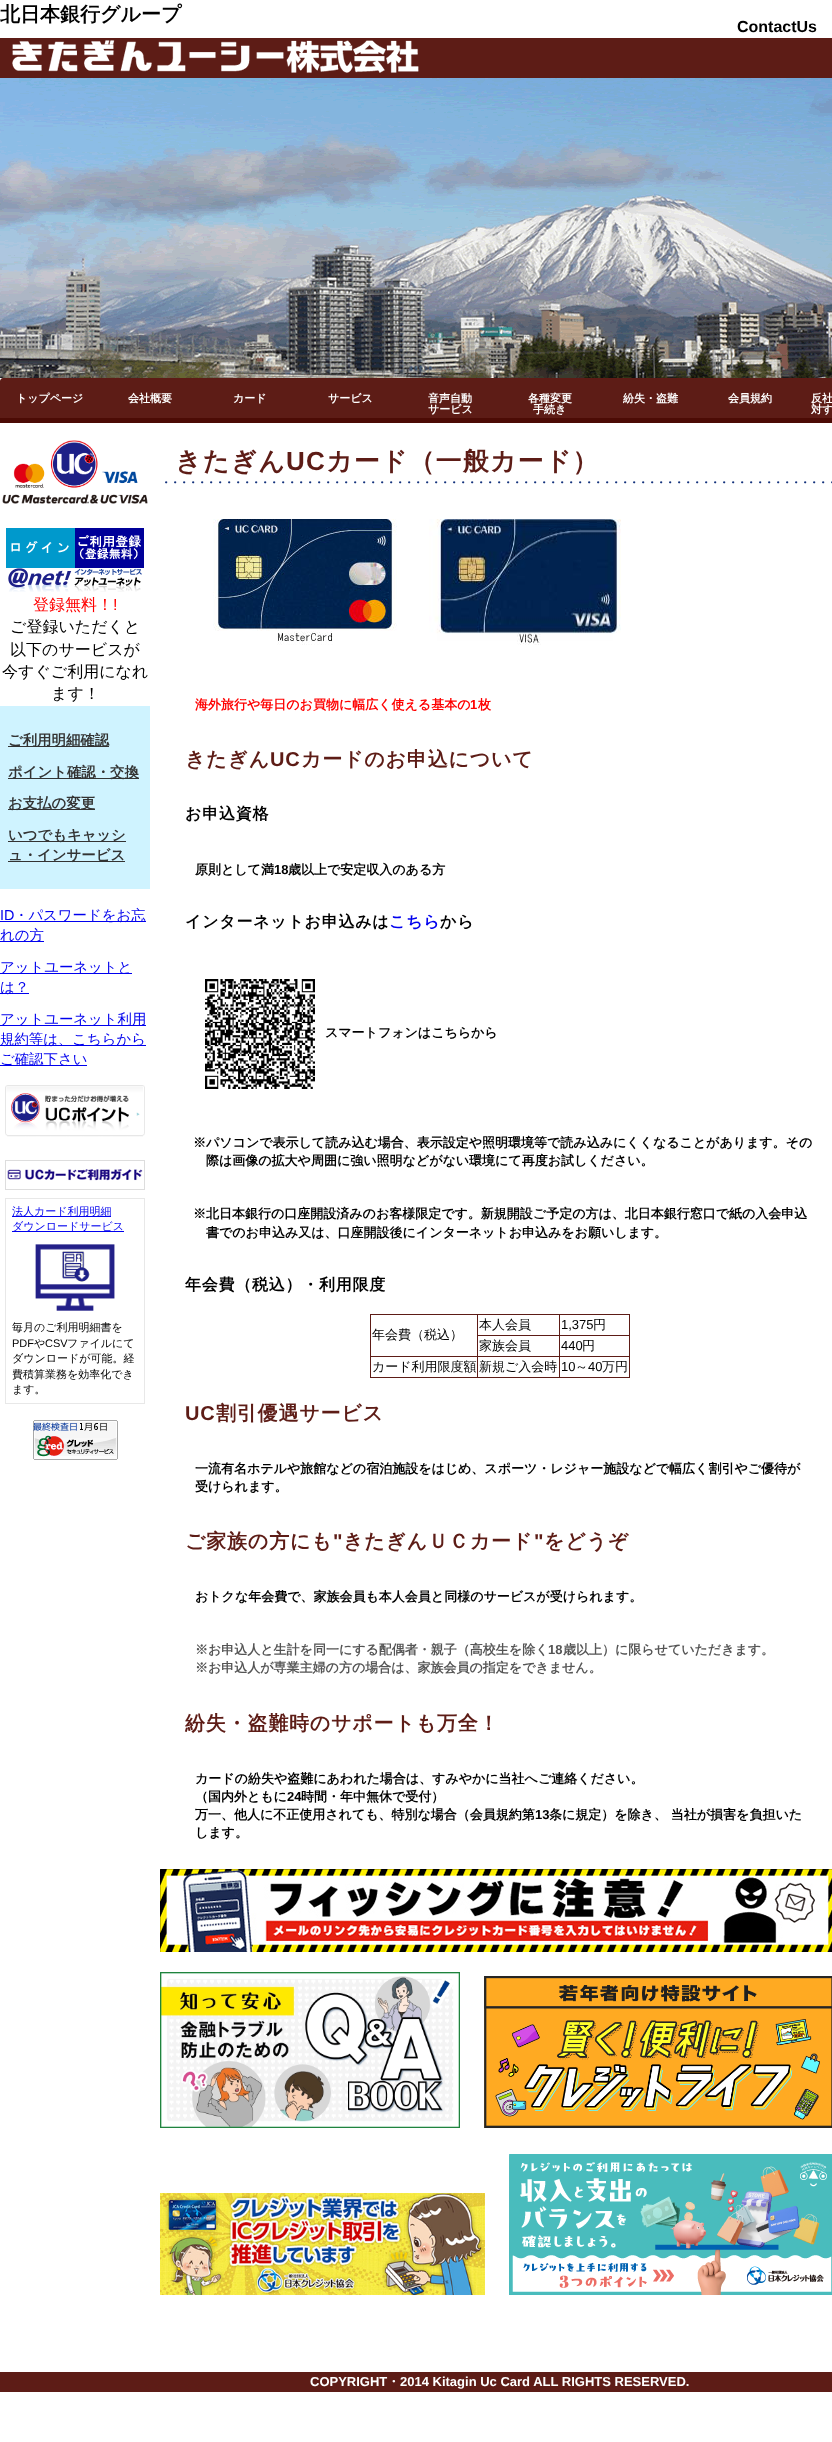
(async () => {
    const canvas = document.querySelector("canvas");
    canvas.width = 832;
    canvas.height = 2442;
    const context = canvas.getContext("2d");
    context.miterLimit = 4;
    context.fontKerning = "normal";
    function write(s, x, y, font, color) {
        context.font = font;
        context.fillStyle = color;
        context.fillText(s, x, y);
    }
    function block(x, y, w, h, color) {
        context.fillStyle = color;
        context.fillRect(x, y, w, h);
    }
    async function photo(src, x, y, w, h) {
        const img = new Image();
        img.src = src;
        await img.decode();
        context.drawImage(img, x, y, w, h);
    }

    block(0, 0, 832, 2442, "rgb(255, 255, 255)");
    write("北日本銀行グループ", 0, 21, "bold 20px WenQuanYi Zen Hei", "rgb(0, 0, 0)");
    write("ContactUs", 737, 32, "bold 16px Liberation Sans", "rgb(0, 0, 0)");
    block(0, 38, 832, 40, "rgb(93, 28, 22)");
    await photo("media/1.png", 12, 40, 407, 33);
    await photo("media/2.png", 0, 78, 832, 300);
    context.beginPath();
    context.moveTo(3, 378);
    context.lineTo(832, 378);
    context.bezierCurveTo(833.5, 378, 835, 379.5, 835, 381);
    context.lineTo(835, 423);
    context.lineTo(0, 423);
    context.lineTo(0, 381);
    context.bezierCurveTo(0, 379.5, 1.5, 378, 3, 378);
    context.closePath();
    context.fill();
    block(0, 418, 832, 5, "rgb(76, 11, 5)");
    write("トップページ", 16, 402, "bold 11px WenQuanYi Zen Hei", "rgb(255, 255, 255)");
    write("会社概要", 128, 402, "bold 11px WenQuanYi Zen Hei", "rgb(255, 255, 255)");
    write("カード", 233, 402, "bold 11px WenQuanYi Zen Hei", "rgb(255, 255, 255)");
    write("サービス", 328, 402, "bold 11px WenQuanYi Zen Hei", "rgb(255, 255, 255)");
    write("音声自動", 428, 402, "bold 11px WenQuanYi Zen Hei", "rgb(255, 255, 255)");
    write("サービス", 428, 413, "bold 11px WenQuanYi Zen Hei", "rgb(255, 255, 255)");
    write("各種変更", 528, 402, "bold 11px WenQuanYi Zen Hei", "rgb(255, 255, 255)");
    write("手続き", 533, 413, "bold 11px WenQuanYi Zen Hei", "rgb(255, 255, 255)");
    write("紛失・盗難", 623, 402, "bold 11px WenQuanYi Zen Hei", "rgb(255, 255, 255)");
    write("会員規約", 728, 402, "bold 11px WenQuanYi Zen Hei", "rgb(255, 255, 255)");
    write("反社", 811, 402, "bold 11px WenQuanYi Zen Hei", "rgb(255, 255, 255)");
    write("対す", 811, 413, "bold 11px WenQuanYi Zen Hei", "rgb(255, 255, 255)");
    await photo("media/3.png", 2, 440, 146, 64);
    await photo("media/4.png", 6, 528, 69, 40);
    await photo("media/5.png", 75, 528, 69, 40);
    await photo("media/6.png", 8, 568, 134, 24);
    write("登録無料！", 33, 610, "500 16px WenQuanYi Zen Hei", "rgb(255, 0, 0)");
    write("!", 113, 610, "16px Liberation Sans", "rgb(255, 0, 0)");
    write("ご登録いただくと", 10, 632, "500 16px WenQuanYi Zen Hei", "rgb(0, 0, 0)");
    write("以下のサービスが", 10, 655, "500 16px WenQuanYi Zen Hei", "rgb(0, 0, 0)");
    write("今すぐご利用になれ", 2, 677, "500 16px WenQuanYi Zen Hei", "rgb(0, 0, 0)");
    write("ます！", 51, 699, "500 16px WenQuanYi Zen Hei", "rgb(0, 0, 0)");
    block(0, 706, 150, 183, "rgb(207, 243, 255)");
    block(8, 746, 101, 1, "rgb(51, 51, 51)");
    write("ご利用明細確認", 8, 745, "bold 14.4px WenQuanYi Zen Hei", "rgb(51, 51, 51)");
    block(8, 778, 131, 1, "rgb(51, 51, 51)");
    write("ポイント確認・交換", 8, 777, "bold 14.4px WenQuanYi Zen Hei", "rgb(51, 51, 51)");
    block(8, 809, 87, 1, "rgb(51, 51, 51)");
    write("お支払の変更", 8, 808, "bold 14.4px WenQuanYi Zen Hei", "rgb(51, 51, 51)");
    block(8, 841, 118, 1, "rgb(51, 51, 51)");
    write("いつでもキャッシ", 8, 840, "bold 14.4px WenQuanYi Zen Hei", "rgb(51, 51, 51)");
    block(8, 861, 117, 1, "rgb(51, 51, 51)");
    write("ュ・インサービス", 8, 860, "bold 14.4px WenQuanYi Zen Hei", "rgb(51, 51, 51)");
    write("ID", 0, 920, "14.4px Liberation Sans", "rgb(0, 0, 238)");
    block(0, 921, 146, 1, "rgb(0, 0, 238)");
    write("・パスワードをお忘", 14, 920, "500 14.4px WenQuanYi Zen Hei", "rgb(0, 0, 238)");
    block(0, 941, 44, 1, "rgb(0, 0, 238)");
    write("れの方", 0, 940, "500 14.4px WenQuanYi Zen Hei", "rgb(0, 0, 238)");
    block(0, 973, 132, 1, "rgb(0, 0, 238)");
    write("アットユーネットと", 0, 972, "500 14.4px WenQuanYi Zen Hei", "rgb(0, 0, 238)");
    block(0, 993, 29, 1, "rgb(0, 0, 238)");
    write("は？", 0, 992, "500 14.4px WenQuanYi Zen Hei", "rgb(0, 0, 238)");
    block(0, 1025, 146, 1, "rgb(0, 0, 238)");
    write("アットユーネット利用", 0, 1024, "500 14.4px WenQuanYi Zen Hei", "rgb(0, 0, 238)");
    block(0, 1045, 146, 1, "rgb(0, 0, 238)");
    write("規約等は、こちらから", 0, 1044, "500 14.4px WenQuanYi Zen Hei", "rgb(0, 0, 238)");
    block(0, 1065, 87, 1, "rgb(0, 0, 238)");
    write("ご確認下さい", 0, 1064, "500 14.4px WenQuanYi Zen Hei", "rgb(0, 0, 238)");
    await photo("media/7.png", 5, 1085, 140, 52);
    await photo("media/8.png", 5, 1160, 140, 30);
    context.strokeStyle = "rgb(232, 232, 232)";
    context.strokeRect(5.5, 1198.5, 139, 205);
    block(12, 1216, 99, 1, "rgb(0, 0, 238)");
    write("法人カード利用明細", 12, 1215, "500 11px WenQuanYi Zen Hei", "rgb(0, 0, 238)");
    block(12, 1231, 112, 1, "rgb(0, 0, 238)");
    write("ダウンロードサービス", 12, 1230, "500 11px WenQuanYi Zen Hei", "rgb(0, 0, 238)");
    await photo("media/9.png", 35, 1244, 80, 67);
    write("毎月のご利用明細書を", 12, 1331, "500 11px WenQuanYi Zen Hei", "rgb(0, 0, 0)");
    write("PDF", 12, 1347, "11px Liberation Sans", "rgb(0, 0, 0)");
    write("や", 34, 1347, "500 11px WenQuanYi Zen Hei", "rgb(0, 0, 0)");
    write("CSV", 45, 1347, "11px Liberation Sans", "rgb(0, 0, 0)");
    write("ファイルにて", 67, 1347, "500 11px WenQuanYi Zen Hei", "rgb(0, 0, 0)");
    write("ダウンロードが可能。経", 12, 1362, "500 11px WenQuanYi Zen Hei", "rgb(0, 0, 0)");
    write("費積算業務を効率化でき", 12, 1378, "500 11px WenQuanYi Zen Hei", "rgb(0, 0, 0)");
    write("ます。", 12, 1393, "500 11px WenQuanYi Zen Hei", "rgb(0, 0, 0)");
    await photo("media/10.png", 33, 1420, 85, 40);
    await photo("media/11.png", 165, 481, 667, 3);
    context.letterSpacing = "1.1px";
    write("きたぎん", 175, 470, "bold 26px WenQuanYi Zen Hei", "rgb(93, 28, 22)");
    write("UC", 286, 470, "bold 26px Liberation Sans", "rgb(93, 28, 22)");
    write("カード（一般カード）", 326, 470, "bold 26px WenQuanYi Zen Hei", "rgb(93, 28, 22)");
    await photo("media/12.png", 213, 519, 184, 126);
    await photo("media/13.png", 429, 519, 192, 126);
    context.letterSpacing = "0px";
    write("海外旅行や毎日のお買物に幅広く使える基本の", 195, 709, "bold 13px WenQuanYi Zen Hei", "rgb(255, 0, 0)");
    write("1", 470, 709, "bold 13px Liberation Sans", "rgb(255, 0, 0)");
    write("枚", 478, 709, "bold 13px WenQuanYi Zen Hei", "rgb(255, 0, 0)");
    context.letterSpacing = "0.8px";
    write("きたぎん", 185, 766, "bold 20px WenQuanYi Zen Hei", "rgb(93, 28, 22)");
    write("UC", 270, 766, "bold 20px Liberation Sans", "rgb(93, 28, 22)");
    write("カードのお申込について", 301, 766, "bold 20px WenQuanYi Zen Hei", "rgb(93, 28, 22)");
    context.letterSpacing = "0.75px";
    write("お申込資格", 185, 819, "bold 16px WenQuanYi Zen Hei", "rgb(0, 0, 0)");
    context.letterSpacing = "0px";
    write("原則として満", 195, 874, "bold 13px WenQuanYi Zen Hei", "rgb(0, 0, 0)");
    write("18", 274, 874, "bold 13px Liberation Sans", "rgb(0, 0, 0)");
    write("歳以上で安定収入のある方", 288, 874, "bold 13px WenQuanYi Zen Hei", "rgb(0, 0, 0)");
    context.letterSpacing = "0.75px";
    write("インターネットお申込みは", 185, 927, "bold 16px WenQuanYi Zen Hei", "rgb(0, 0, 0)");
    write("こちら", 389, 927, "bold 16px WenQuanYi Zen Hei", "rgb(0, 0, 238)");
    write("から", 440, 927, "bold 16px WenQuanYi Zen Hei", "rgb(0, 0, 0)");
    await photo("media/14.png", 205, 979, 110, 110);
    context.letterSpacing = "0px";
    write("スマートフォンはこちらから", 325, 1037, "bold 13px WenQuanYi Zen Hei", "rgb(0, 0, 0)");
    write("※パソコンで表示して読み込む場合、表示設定や照明環境等で読み込みにくくなることがあります。その", 193, 1147, "bold 13px WenQuanYi Zen Hei", "rgb(0, 0, 0)");
    write("際は画像の拡大や周囲に強い照明などがない環境にて再度お試しください。", 206, 1165, "bold 13px WenQuanYi Zen Hei", "rgb(0, 0, 0)");
    write("※北日本銀行の口座開設済みのお客様限定です。新規開設ご予定の方は、北日本銀行窓口で紙の入会申込", 193, 1218, "bold 13px WenQuanYi Zen Hei", "rgb(0, 0, 0)");
    write("書でのお申込み又は、口座開設後にインターネットお申込みをお願いします。", 206, 1237, "bold 13px WenQuanYi Zen Hei", "rgb(0, 0, 0)");
    context.letterSpacing = "0.75px";
    write("年会費（税込）・利用限度", 185, 1290, "bold 16px WenQuanYi Zen Hei", "rgb(0, 0, 0)");
    block(370, 1314, 260, 1, "rgb(93, 28, 22)");
    block(629, 1314, 1, 64, "rgb(93, 28, 22)");
    block(370, 1377, 260, 1, "rgb(93, 28, 22)");
    block(370, 1314, 1, 64, "rgb(93, 28, 22)");
    context.letterSpacing = "0px";
    write("本人会員", 479, 1329, "500 13px WenQuanYi Zen Hei", "rgb(0, 0, 0)");
    block(559, 1335, 71, 1, "rgb(93, 28, 22)");
    block(559, 1356, 71, 1, "rgb(93, 28, 22)");
    block(559, 1356, 1, 22, "rgb(93, 28, 22)");
    block(477, 1356, 83, 1, "rgb(93, 28, 22)");
    block(559, 1335, 1, 22, "rgb(93, 28, 22)");
    block(477, 1335, 83, 1, "rgb(93, 28, 22)");
    block(559, 1314, 1, 22, "rgb(93, 28, 22)");
    write("1,375", 561, 1329, "13px Liberation Sans", "rgb(0, 0, 0)");
    write("円", 593, 1329, "500 13px WenQuanYi Zen Hei", "rgb(0, 0, 0)");
    write("年会費（税込）", 372, 1339, "500 13px WenQuanYi Zen Hei", "rgb(0, 0, 0)");
    block(477, 1356, 1, 22, "rgb(93, 28, 22)");
    block(370, 1356, 108, 1, "rgb(93, 28, 22)");
    block(477, 1314, 1, 43, "rgb(93, 28, 22)");
    write("家族会員", 479, 1350, "500 13px WenQuanYi Zen Hei", "rgb(0, 0, 0)");
    write("440", 561, 1350, "13px Liberation Sans", "rgb(0, 0, 0)");
    write("円", 582, 1350, "500 13px WenQuanYi Zen Hei", "rgb(0, 0, 0)");
    write("カード利用限度額", 372, 1371, "500 13px WenQuanYi Zen Hei", "rgb(0, 0, 0)");
    write("新規ご入会時", 479, 1371, "500 13px WenQuanYi Zen Hei", "rgb(0, 0, 0)");
    write("10", 561, 1371, "13px Liberation Sans", "rgb(0, 0, 0)");
    write("～", 575, 1371, "500 13px WenQuanYi Zen Hei", "rgb(0, 0, 0)");
    write("40", 588, 1371, "13px Liberation Sans", "rgb(0, 0, 0)");
    write("万円", 602, 1371, "500 13px WenQuanYi Zen Hei", "rgb(0, 0, 0)");
    context.letterSpacing = "0.8px";
    write("UC", 185, 1420, "bold 20px Liberation Sans", "rgb(93, 28, 22)");
    write("割引優遇サービス", 216, 1420, "bold 20px WenQuanYi Zen Hei", "rgb(93, 28, 22)");
    context.letterSpacing = "0px";
    write("一流有名ホテルや旅館などの宿泊施設をはじめ、スポーツ・レジャー施設などで幅広く割引やご優待が", 195, 1473, "bold 13px WenQuanYi Zen Hei", "rgb(0, 0, 0)");
    write("受けられます。", 195, 1491, "bold 13px WenQuanYi Zen Hei", "rgb(0, 0, 0)");
    context.letterSpacing = "0.8px";
    write("ご家族の方にも", 185, 1548, "bold 20px WenQuanYi Zen Hei", "rgb(93, 28, 22)");
    write("\"", 333, 1548, "bold 20px Liberation Sans", "rgb(93, 28, 22)");
    write("きたぎんＵＣカード", 343, 1548, "bold 20px WenQuanYi Zen Hei", "rgb(93, 28, 22)");
    write("\"", 534, 1548, "bold 20px Liberation Sans", "rgb(93, 28, 22)");
    write("をどうぞ", 544, 1548, "bold 20px WenQuanYi Zen Hei", "rgb(93, 28, 22)");
    context.letterSpacing = "0px";
    write("おトクな年会費で、家族会員も本人会員と同様のサービスが受けられます。", 195, 1601, "bold 13px WenQuanYi Zen Hei", "rgb(0, 0, 0)");
    write("※お申込人と生計を同一にする配偶者・親子（高校生を除く", 195, 1654, "bold 13px WenQuanYi Zen Hei", "rgb(85, 85, 85)");
    write("18", 548, 1654, "bold 13px Liberation Sans", "rgb(85, 85, 85)");
    write("歳以上）に限らせていただきます。", 563, 1654, "bold 13px WenQuanYi Zen Hei", "rgb(85, 85, 85)");
    write("※お申込人が専業主婦の方の場合は、家族会員の指定をできません。", 195, 1672, "bold 13px WenQuanYi Zen Hei", "rgb(85, 85, 85)");
    context.letterSpacing = "0.8px";
    write("紛失・盗難時のサポートも万全！", 185, 1730, "bold 20px WenQuanYi Zen Hei", "rgb(93, 28, 22)");
    context.letterSpacing = "0px";
    write("カードの紛失や盗難にあわれた場合は、すみやかに当社へご連絡ください。", 195, 1783, "bold 13px WenQuanYi Zen Hei", "rgb(0, 0, 0)");
    write("（国内外ともに", 195, 1801, "bold 13px WenQuanYi Zen Hei", "rgb(0, 0, 0)");
    write("24", 287, 1801, "bold 13px Liberation Sans", "rgb(0, 0, 0)");
    write("時間・年中無休で受付）", 301, 1801, "bold 13px WenQuanYi Zen Hei", "rgb(0, 0, 0)");
    write("万一、他人に不正使用されても、特別な場合（会員規約第", 195, 1819, "bold 13px WenQuanYi Zen Hei", "rgb(0, 0, 0)");
    write("13", 535, 1819, "bold 13px Liberation Sans", "rgb(0, 0, 0)");
    write("条に規定）を除き、 当社が損害を負担いた", 549, 1819, "bold 13px WenQuanYi Zen Hei", "rgb(0, 0, 0)");
    write("します。", 195, 1837, "bold 13px WenQuanYi Zen Hei", "rgb(0, 0, 0)");
    await photo("media/15.png", 160, 1869, 672, 83);
    await photo("media/16.png", 160, 1972, 300, 156);
    await photo("media/17.png", 484, 1976, 348, 152);
    await photo("media/18.png", 160, 2193, 325, 102);
    await photo("media/19.png", 509, 2154, 323, 141);
    block(0, 2372, 832, 20, "rgb(93, 28, 22)");
    write("COPYRIGHT", 310, 2386, "bold 13px Liberation Sans", "rgb(255, 255, 255)");
    write("・", 387, 2386, "bold 13px WenQuanYi Zen Hei", "rgb(255, 255, 255)");
    write("2014 Kitagin Uc Card ALL RIGHTS RESERVED.", 400, 2386, "bold 13px Liberation Sans", "rgb(255, 255, 255)");
})();
